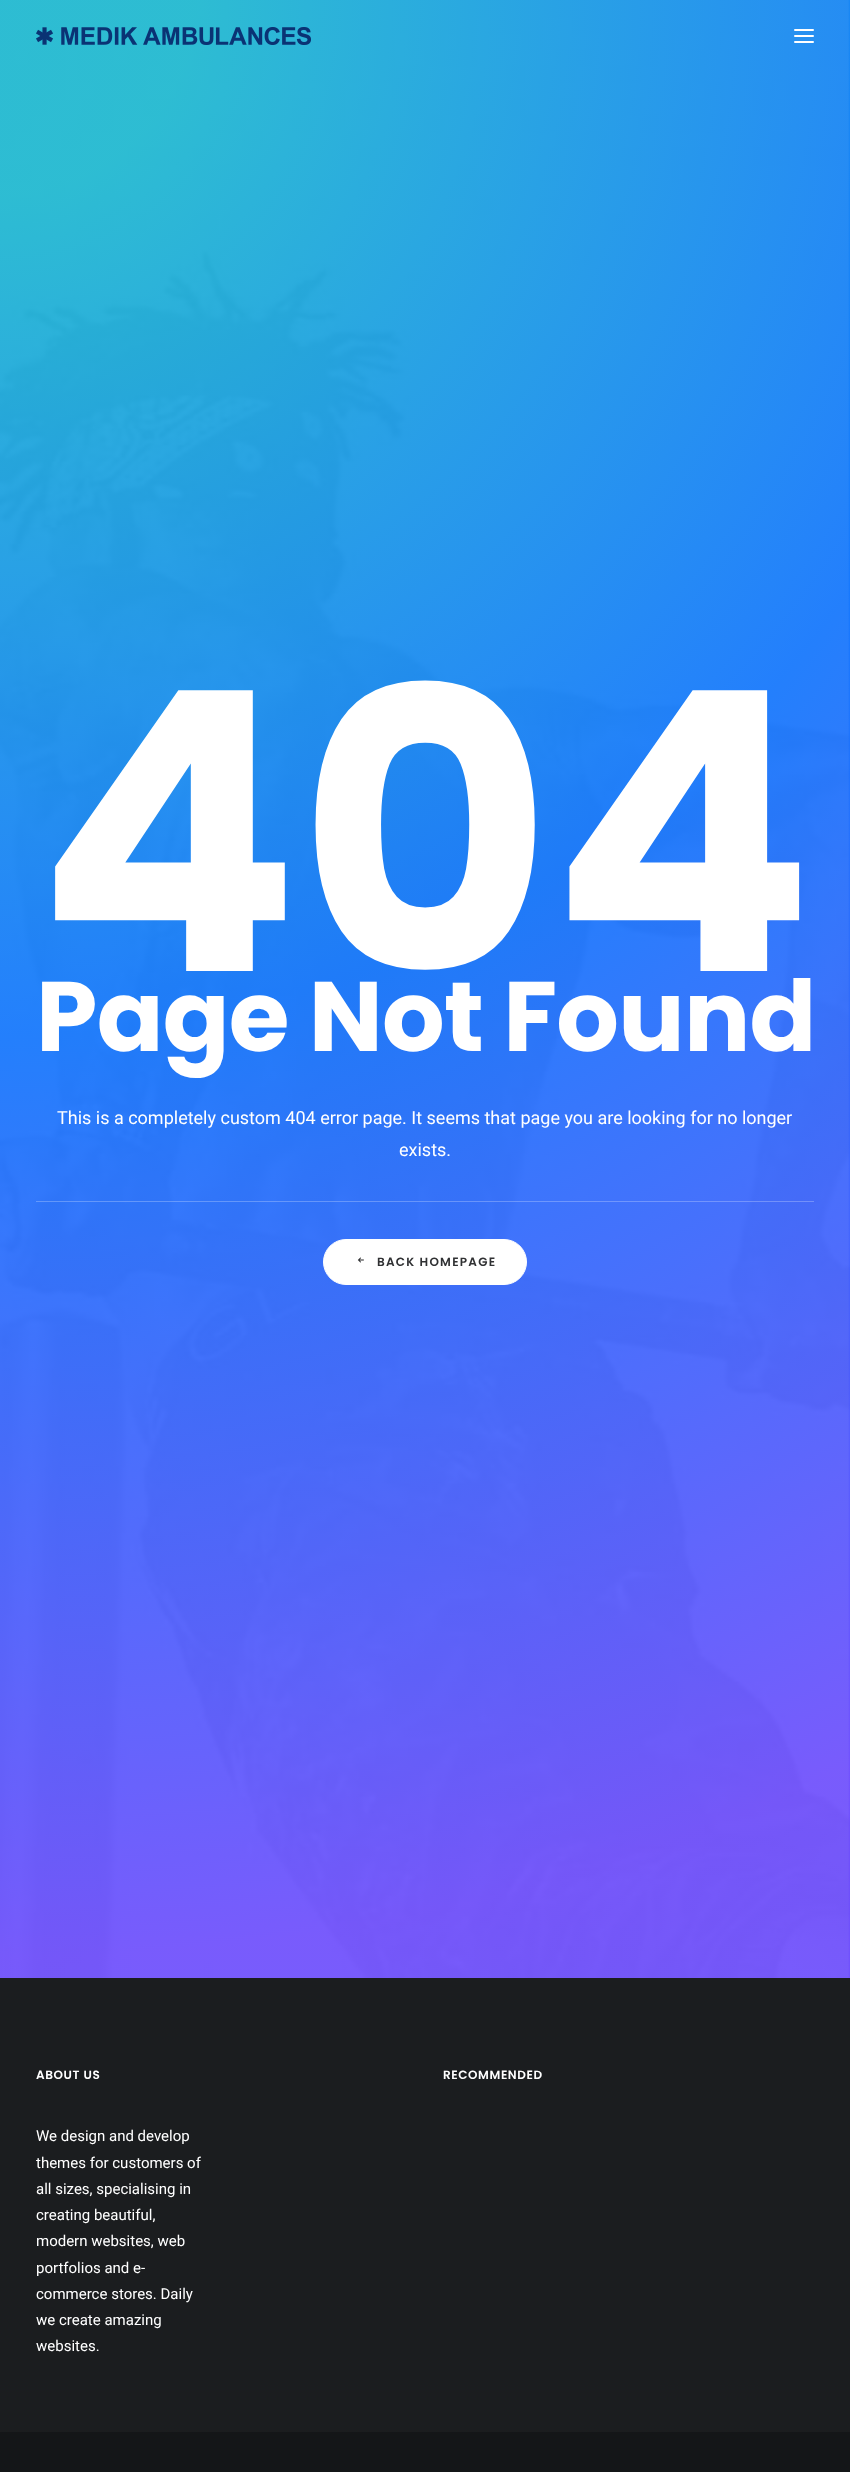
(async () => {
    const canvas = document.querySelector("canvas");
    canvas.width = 850;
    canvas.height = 2472;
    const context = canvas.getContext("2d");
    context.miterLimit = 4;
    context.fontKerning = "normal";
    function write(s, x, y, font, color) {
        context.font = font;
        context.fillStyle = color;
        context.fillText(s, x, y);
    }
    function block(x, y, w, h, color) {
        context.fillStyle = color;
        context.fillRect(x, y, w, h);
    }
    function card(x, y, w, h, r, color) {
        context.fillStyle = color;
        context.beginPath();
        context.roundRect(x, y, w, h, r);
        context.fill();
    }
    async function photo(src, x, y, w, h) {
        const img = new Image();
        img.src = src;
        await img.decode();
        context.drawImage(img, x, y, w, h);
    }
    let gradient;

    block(0, 0, 850, 2472, "rgb(20, 22, 24)");
    gradient = context.createRadialGradient(0, 0, 0, 0, 0, 2153);
    gradient.addColorStop(0.09, "rgb(12, 180, 206)");
    gradient.addColorStop(0.48, "rgb(0, 108, 255)");
    gradient.addColorStop(0.91, "rgb(100, 66, 255)");
    context.fillStyle = gradient;
    context.fillRect(848, 0, 2, 1978);
    await photo("media/2.png", 0, 0, 850, 1978);
    gradient = context.createRadialGradient(0, 0, 0, 0, 0, 2153);
    gradient.addColorStop(0.09, "rgba(12, 180, 206, 0.85)");
    gradient.addColorStop(0.48, "rgba(0, 108, 255, 0.85)");
    gradient.addColorStop(0.91, "rgba(100, 66, 255, 0.85)");
    context.fillStyle = gradient;
    context.fillRect(0, 0, 850, 1978);
    await photo("media/1.png", 36, 27, 275, 18);
    card(794, 35, 20, 2, 1, "rgb(255, 255, 255)");
    card(794, 29, 20, 2, 1, "rgb(255, 255, 255)");
    card(794, 41, 20, 2, 1, "rgb(255, 255, 255)");
    context.letterSpacing = "-2px";
    write("404", 36, 971, "bold 390px Poppins", "rgb(255, 255, 255)");
    context.letterSpacing = "-0.8px";
    write("Page Not Found", 36, 1051, "bold 98.5px Poppins", "rgb(255, 255, 255)");
    context.letterSpacing = "0px";
    write("This is a completely custom 404 error page. It seems that page you are looking for no longer", 57, 1124, "18px Roboto", "rgb(255, 255, 255)");
    write("exists.", 399, 1156, "18px Roboto", "rgb(255, 255, 255)");
    block(36, 1201, 778, 1, "rgba(255, 255, 255, 0.25)");
    context.fillStyle = "rgb(255, 255, 255)";
    context.beginPath();
    context.roundRect(323.5, 1239.5, 203, 45, 22.5);
    context.fill();
    context.strokeStyle = "rgb(255, 255, 255)";
    context.stroke();
    await photo("media/3.png", 357, 1257, 7, 6);
    context.letterSpacing = "1.25px";
    write("BACK HOMEPAGE", 377, 1266, "600 12px Poppins", "rgb(48, 49, 51)");
    block(0, 1978, 850, 454, "rgb(27, 29, 31)");
    context.letterSpacing = "0.6px";
    write("ABOUT US", 36, 2079, "600 12px Poppins", "rgb(255, 255, 255)");
    context.letterSpacing = "0px";
    write("We design and develop", 36, 2141, "15px Roboto", "rgb(255, 255, 255)");
    write("themes for customers of", 36, 2168, "15px Roboto", "rgb(255, 255, 255)");
    write("all sizes, specialising in", 36, 2194, "15px Roboto", "rgb(255, 255, 255)");
    write("creating beautiful,", 36, 2220, "15px Roboto", "rgb(255, 255, 255)");
    write("modern websites, web", 36, 2246, "15px Roboto", "rgb(255, 255, 255)");
    write("portfolios and e-", 36, 2273, "15px Roboto", "rgb(255, 255, 255)");
    write("commerce stores. Daily", 36, 2299, "15px Roboto", "rgb(255, 255, 255)");
    write("we create amazing", 36, 2325, "15px Roboto", "rgb(255, 255, 255)");
    write("websites.", 36, 2351, "15px Roboto", "rgb(255, 255, 255)");
    context.letterSpacing = "0.6px";
    write("RECOMMENDED", 443, 2079, "600 12px Poppins", "rgb(255, 255, 255)");
})();
